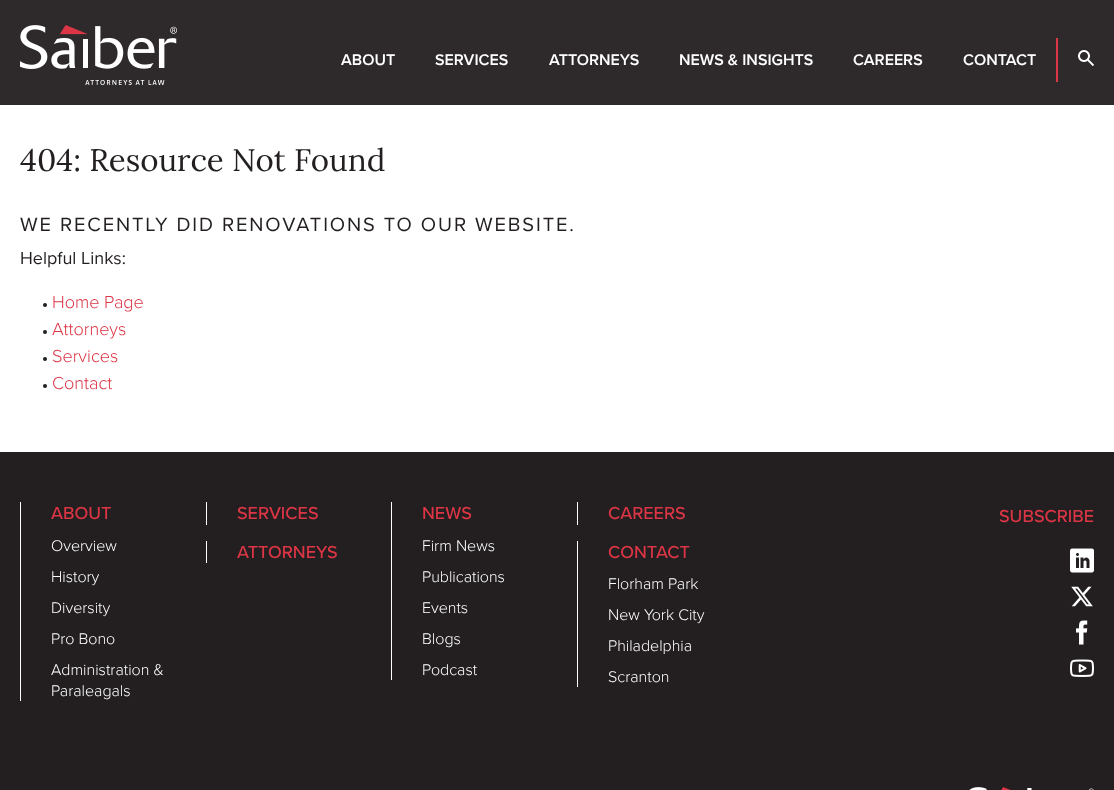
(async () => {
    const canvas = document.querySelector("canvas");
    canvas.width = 1114;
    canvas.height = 790;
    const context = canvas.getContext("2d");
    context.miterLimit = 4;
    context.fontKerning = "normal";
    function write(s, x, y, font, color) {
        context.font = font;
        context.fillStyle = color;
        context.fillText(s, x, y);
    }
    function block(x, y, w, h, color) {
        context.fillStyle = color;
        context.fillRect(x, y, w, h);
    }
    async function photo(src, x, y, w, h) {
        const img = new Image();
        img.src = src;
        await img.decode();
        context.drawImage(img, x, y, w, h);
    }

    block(0, 0, 1114, 790, "rgb(255, 255, 255)");
    block(0, 0, 1114, 105, "rgb(46, 42, 43)");
    await photo("media/1.png", 20, 25, 157, 60);
    write("ABOUT", 341, 65, "600 16px Proxima Nova", "rgb(255, 255, 255)");
    write("SERVICES", 435, 65, "600 16px Proxima Nova", "rgb(255, 255, 255)");
    write("ATTORNEYS", 549, 65, "600 16px Proxima Nova", "rgb(255, 255, 255)");
    write("NEWS & INSIGHTS", 679, 65, "600 16px Proxima Nova", "rgb(255, 255, 255)");
    write("CAREERS", 853, 65, "600 16px Proxima Nova", "rgb(255, 255, 255)");
    write("CONTACT", 963, 65, "600 16px Proxima Nova", "rgb(255, 255, 255)");
    block(1056, 38, 2, 44, "rgb(220, 53, 69)");
    await photo("media/2.png", 1078, 50, 16, 16);
    write("404: Resource Not Found", 20, 171, "31.25px Lora", "rgb(35, 31, 32)");
    context.letterSpacing = "1.9px";
    write("WE RECENTLY DID RENOVATIONS TO OUR WEBSITE.", 20, 231, "20px Proxima Nova", "rgb(35, 31, 32)");
    context.letterSpacing = "0px";
    write("Helpful Links:", 20, 264, "18px Proxima Nova", "rgb(35, 31, 32)");
    context.beginPath();
    context.arc(45, 305, 2, 0, Math.PI * 2);
    context.fill();
    write("Home Page", 52, 308, "300 18px Proxima Nova", "rgb(220, 53, 69)");
    context.fillStyle = "rgb(35, 31, 32)";
    context.beginPath();
    context.arc(45, 332, 2, 0, Math.PI * 2);
    context.fill();
    write("Attorneys", 52, 335, "300 18px Proxima Nova", "rgb(220, 53, 69)");
    context.fillStyle = "rgb(35, 31, 32)";
    context.beginPath();
    context.arc(45, 359, 2, 0, Math.PI * 2);
    context.fill();
    write("Services", 52, 362, "300 18px Proxima Nova", "rgb(220, 53, 69)");
    context.fillStyle = "rgb(35, 31, 32)";
    context.beginPath();
    context.arc(45, 386, 2, 0, Math.PI * 2);
    context.fill();
    write("Contact", 52, 389, "300 18px Proxima Nova", "rgb(220, 53, 69)");
    block(0, 452, 1114, 338, "rgb(35, 31, 32)");
    block(20, 502, 1, 199, "rgb(255, 255, 255)");
    write("ABOUT", 51, 519, "500 18px Proxima Nova", "rgb(220, 53, 69)");
    write("Overview", 51, 551, "300 16px Proxima Nova", "rgb(255, 255, 255)");
    write("History", 51, 582, "300 16px Proxima Nova", "rgb(255, 255, 255)");
    write("Diversity", 51, 613, "300 16px Proxima Nova", "rgb(255, 255, 255)");
    write("Pro Bono", 51, 644, "300 16px Proxima Nova", "rgb(255, 255, 255)");
    write("Administration &", 51, 675, "300 16px Proxima Nova", "rgb(255, 255, 255)");
    write("Paraleagals", 51, 696, "300 16px Proxima Nova", "rgb(255, 255, 255)");
    block(206, 502, 1, 23, "rgb(255, 255, 255)");
    write("SERVICES", 237, 519, "500 18px Proxima Nova", "rgb(220, 53, 69)");
    block(206, 541, 1, 22, "rgb(255, 255, 255)");
    write("ATTORNEYS", 237, 558, "500 18px Proxima Nova", "rgb(220, 53, 69)");
    block(391, 502, 1, 178, "rgb(255, 255, 255)");
    write("NEWS", 422, 519, "500 18px Proxima Nova", "rgb(220, 53, 69)");
    write("Firm News", 422, 551, "300 16px Proxima Nova", "rgb(255, 255, 255)");
    write("Publications", 422, 582, "300 16px Proxima Nova", "rgb(255, 255, 255)");
    write("Events", 422, 613, "300 16px Proxima Nova", "rgb(255, 255, 255)");
    write("Blogs", 422, 644, "300 16px Proxima Nova", "rgb(255, 255, 255)");
    write("Podcast", 422, 675, "300 16px Proxima Nova", "rgb(255, 255, 255)");
    block(577, 502, 1, 23, "rgb(255, 255, 255)");
    write("CAREERS", 608, 519, "500 18px Proxima Nova", "rgb(220, 53, 69)");
    block(577, 541, 1, 146, "rgb(255, 255, 255)");
    write("CONTACT", 608, 558, "500 18px Proxima Nova", "rgb(220, 53, 69)");
    write("Florham Park", 608, 589, "300 16px Proxima Nova", "rgb(255, 255, 255)");
    write("New York City", 608, 620, "300 16px Proxima Nova", "rgb(255, 255, 255)");
    write("Philadelphia", 608, 651, "300 16px Proxima Nova", "rgb(255, 255, 255)");
    write("Scranton", 608, 682, "300 16px Proxima Nova", "rgb(255, 255, 255)");
    write("SUBSCRIBE", 999, 522, "500 18px Proxima Nova", "rgb(220, 53, 69)");
    await photo("media/3.png", 1070, 548, 24, 25);
    await photo("media/4.png", 1071, 586, 22, 21);
    await photo("media/5.png", 1076, 620, 12, 25);
    await photo("media/6.png", 1070, 659, 24, 18);
    await photo("media/7.png", 969, 787, 125, 3);
})();
